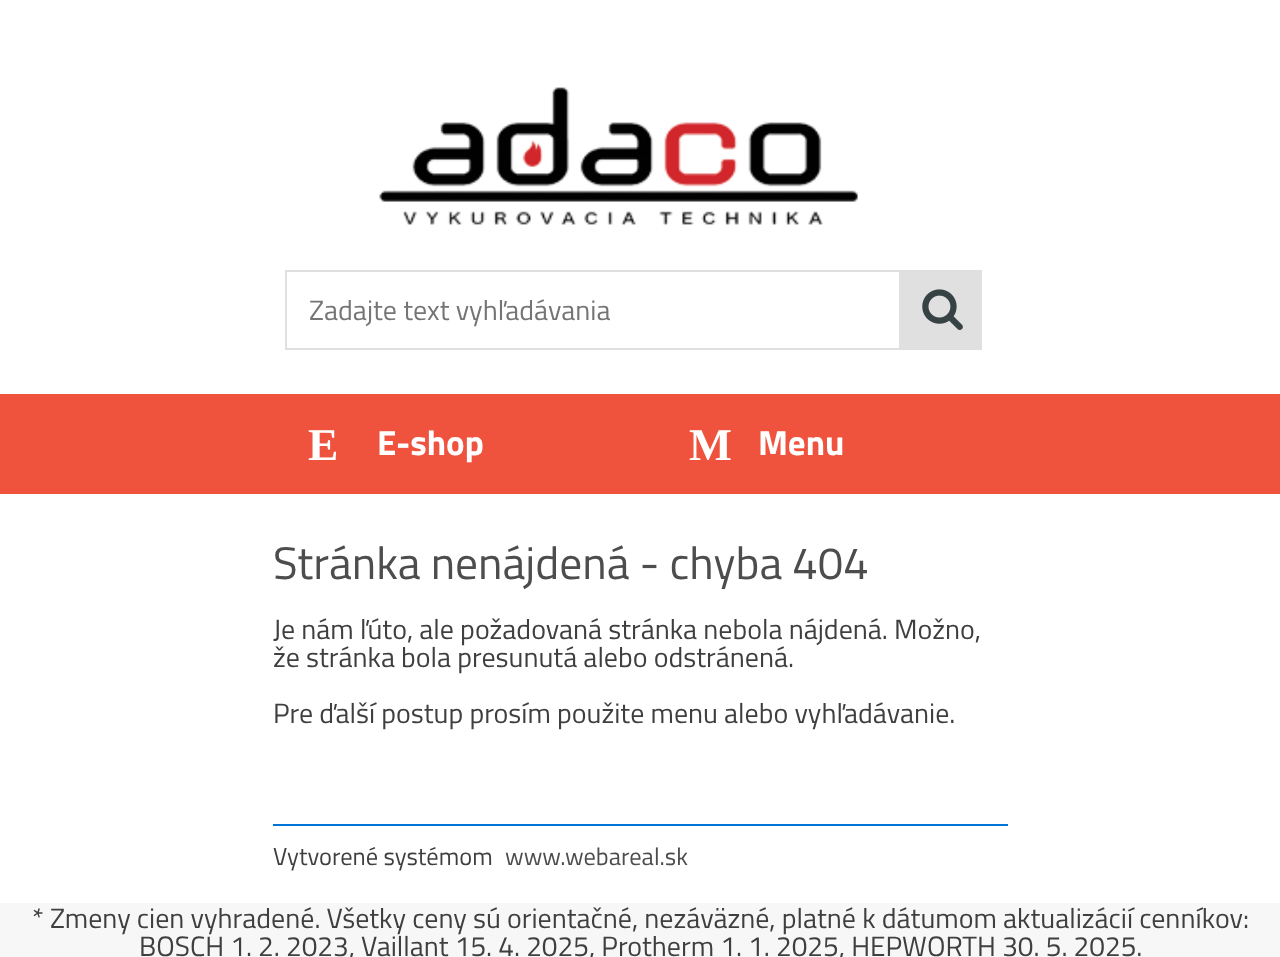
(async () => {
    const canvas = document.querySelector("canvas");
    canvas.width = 1280;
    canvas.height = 957;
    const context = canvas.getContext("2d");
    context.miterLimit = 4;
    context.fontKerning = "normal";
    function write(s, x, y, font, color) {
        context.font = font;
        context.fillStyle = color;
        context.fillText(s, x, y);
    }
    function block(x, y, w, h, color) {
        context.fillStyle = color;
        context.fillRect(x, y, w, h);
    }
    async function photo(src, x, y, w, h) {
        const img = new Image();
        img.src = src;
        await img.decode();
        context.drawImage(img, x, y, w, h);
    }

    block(0, 0, 1280, 957, "rgb(247, 247, 247)");
    block(0, 394, 1280, 100, "rgb(239, 83, 62)");
    block(0, 0, 1280, 394, "rgb(255, 255, 255)");
    await photo("media/1.png", 379, 87, 479, 138);
    context.strokeStyle = "rgb(224, 224, 224)";
    context.lineWidth = 2;
    context.strokeRect(286, 271, 614, 78);
    write("Zadajte text vyhľadávania", 309, 320, "28px Titillium Web", "rgb(117, 117, 117)");
    block(901, 270, 81, 80, "rgb(224, 224, 224)");
    await photo("media/2.png", 922, 289, 41, 41);
    block(0, 494, 1280, 409, "rgb(255, 255, 255)");
    write("E", 308, 460, "bold 45.5px Liberation Serif", "rgb(255, 255, 255)");
    write("E-shop", 377, 455, "bold 35px Titillium Web", "rgb(255, 255, 255)");
    write("M", 689, 460, "bold 45.5px Liberation Serif", "rgb(255, 255, 255)");
    write("Menu", 758, 455, "bold 35px Titillium Web", "rgb(255, 255, 255)");
    write("Stránka nenájdená - chyba 404", 273, 579, "45.5px Titillium Web", "rgb(77, 77, 77)");
    write("Je nám ľúto, ale požadovaná stránka nebola nájdená. Možno,", 273, 639, "28px Titillium Web", "rgb(63, 63, 63)");
    write("že stránka bola presunutá alebo odstránená.", 273, 667, "28px Titillium Web", "rgb(63, 63, 63)");
    write("Pre ďalší postup prosím použite menu alebo vyhľadávanie.", 273, 723, "28px Titillium Web", "rgb(63, 63, 63)");
    block(273, 824, 735, 2, "rgb(1, 117, 215)");
    write("Vytvorené systémom", 273, 865, "24.5px Titillium Web", "rgb(63, 63, 63)");
    write("www.webareal.sk", 505, 865, "24.5px Titillium Web", "rgb(77, 77, 77)");
    write("* Zmeny cien vyhradené. Všetky ceny sú orientačné, nezáväzné, platné k dátumom aktualizácií cenníkov:", 32, 928, "28px Titillium Web", "rgb(63, 63, 63)");
    write("BOSCH 1. 2. 2023, Vaillant 15. 4. 2025, Protherm 1. 1. 2025, HEPWORTH 30. 5. 2025.", 139, 956, "28px Titillium Web", "rgb(63, 63, 63)");
})();
